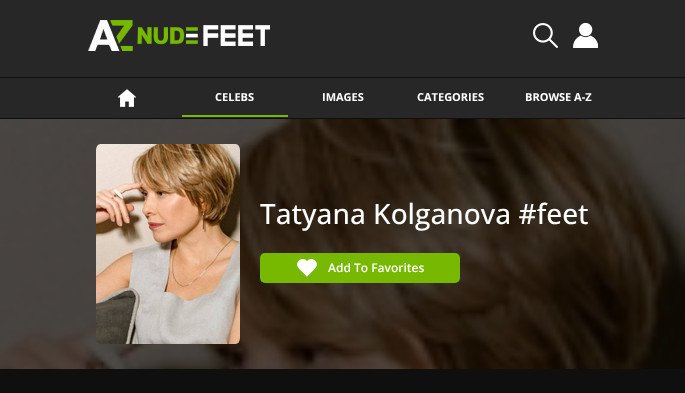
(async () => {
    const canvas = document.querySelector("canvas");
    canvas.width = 685;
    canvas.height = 393;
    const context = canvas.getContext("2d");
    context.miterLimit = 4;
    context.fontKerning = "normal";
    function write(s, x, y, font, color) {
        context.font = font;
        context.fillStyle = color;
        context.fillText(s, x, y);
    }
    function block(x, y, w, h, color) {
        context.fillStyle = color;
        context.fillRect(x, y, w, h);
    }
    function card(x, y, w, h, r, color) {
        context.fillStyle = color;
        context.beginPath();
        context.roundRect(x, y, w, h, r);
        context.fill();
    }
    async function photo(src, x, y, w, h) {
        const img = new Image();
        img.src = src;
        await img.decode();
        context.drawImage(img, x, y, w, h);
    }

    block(0, 0, 685, 393, "rgb(15, 15, 15)");
    block(0, 0, 685, 77, "rgb(39, 39, 39)");
    await photo("media/1.png", 88, 20, 182, 31);
    await photo("media/2.png", 533, 23, 25, 25);
    await photo("media/3.png", 573, 23, 25, 25);
    block(0, 78, 685, 40, "rgb(39, 39, 39)");
    await photo("media/4.png", 118, 89, 18, 18);
    write("CELEBS", 215, 101, "bold 11px Open Sans", "rgb(255, 255, 255)");
    block(182, 115, 106, 2, "rgb(118, 185, 0)");
    write("IMAGES", 322, 101, "bold 11px Open Sans", "rgb(255, 255, 255)");
    write("CATEGORIES", 417, 101, "bold 11px Open Sans", "rgb(255, 255, 255)");
    write("BROWSE A-Z", 525, 101, "bold 11px Open Sans", "rgb(255, 255, 255)");
    await photo("media/5.png", 0, 119, 685, 250);
    await photo("media/6.png", 96, 144, 144, 200);
    write("Tatyana Kolganova #feet", 260, 224, "500 28px Open Sans", "rgb(255, 255, 255)");
    card(260, 253, 200, 30, 5, "rgb(118, 185, 0)");
    context.fillStyle = "rgb(255, 255, 255)";
    context.beginPath();
    context.moveTo(299, 260.5);
    context.bezierCurveTo(301, 258.5, 304.5, 258.5, 306.5, 260.5);
    context.lineTo(315, 268.5);
    context.lineTo(307, 276.5);
    context.lineTo(299, 268.5);
    context.bezierCurveTo(296.5, 266, 296.5, 262.5, 299, 260.5);
    context.closePath();
    context.fill();
    context.beginPath();
    context.moveTo(315, 260.5);
    context.bezierCurveTo(317.5, 262.5, 317.5, 266, 315, 268.5);
    context.lineTo(307, 276.5);
    context.lineTo(299, 268.5);
    context.lineTo(307.5, 260.5);
    context.bezierCurveTo(309.5, 258.5, 313, 258.5, 315, 260.5);
    context.closePath();
    context.fill();
    write("Add To Favorites", 328, 272, "600 12px Open Sans", "rgb(255, 255, 255)");
})();
